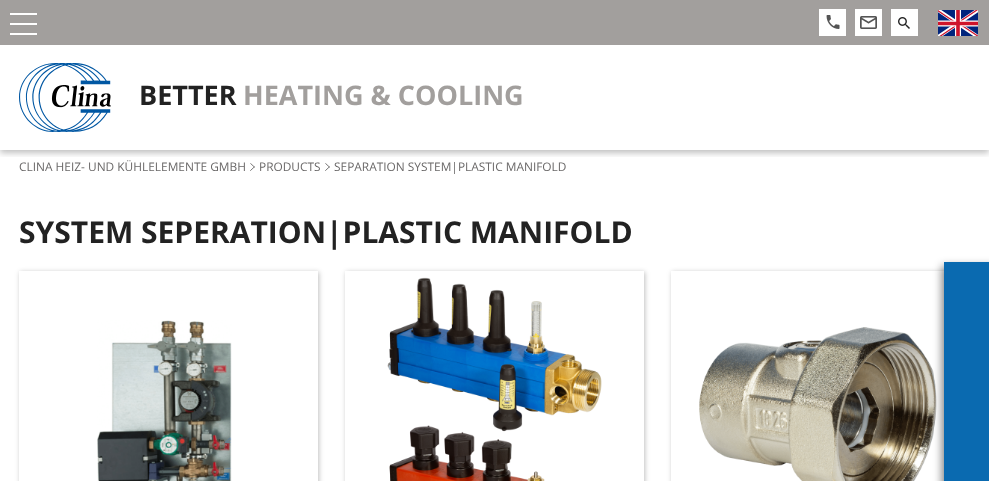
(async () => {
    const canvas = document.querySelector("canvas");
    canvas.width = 989;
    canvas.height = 481;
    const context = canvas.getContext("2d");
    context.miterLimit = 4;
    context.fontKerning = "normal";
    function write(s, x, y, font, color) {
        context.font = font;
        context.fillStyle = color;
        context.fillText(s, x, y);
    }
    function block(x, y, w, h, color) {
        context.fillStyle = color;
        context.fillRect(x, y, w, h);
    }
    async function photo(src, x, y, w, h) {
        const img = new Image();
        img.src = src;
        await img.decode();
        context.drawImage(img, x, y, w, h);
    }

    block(0, 0, 989, 481, "rgb(255, 255, 255)");
    context.save();
    context.beginPath();
    context.rect(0, 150, 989, 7);
    context.clip();
    context.fillStyle = "rgba(0, 0, 0, 0.25)";
    context.filter = "blur(3px)";
    context.beginPath();
    context.rect(0, 48, 989, 105);
    context.fill();
    context.filter = "none";
    context.restore();
    block(0, 0, 989, 45, "rgb(162, 159, 157)");
    block(10, 33, 27, 2, "rgb(255, 255, 255)");
    block(10, 23, 27, 2, "rgb(255, 255, 255)");
    block(10, 13, 27, 2, "rgb(255, 255, 255)");
    block(819, 9, 27, 27, "rgb(255, 255, 255)");
    await photo("media/1.png", 826, 15, 14, 14);
    block(855, 9, 27, 27, "rgb(255, 255, 255)");
    await photo("media/2.png", 860, 16, 17, 13);
    block(891, 9, 27, 27, "rgb(255, 255, 255)");
    await photo("media/3.png", 898, 17, 12, 12);
    await photo("media/4.png", 938, 10, 40, 26);
    await photo("media/5.png", 19, 63, 92, 69);
    write("BETTER", 139, 105, "bold 27px Open Sans", "rgb(34, 34, 34)");
    write("HEATING & COOLING", 243, 105, "bold 27px Open Sans", "rgb(162, 159, 157)");
    write("CLINA HEIZ- UND KÜHLELEMENTE GMBH", 19, 171, "11.9px Open Sans", "rgb(106, 104, 104)");
    await photo("media/6.png", 250, 163, 5, 8);
    write("PRODUCTS", 259, 171, "11.9px Open Sans", "rgb(106, 104, 104)");
    await photo("media/6.png", 325, 163, 5, 8);
    write("SEPARATION SYSTEM|PLASTIC MANIFOLD", 334, 171, "11.9px Open Sans", "rgb(106, 104, 104)");
    write("SYSTEM SEPERATION|PLASTIC MANIFOLD", 19, 243, "bold 30px Open Sans", "rgb(34, 34, 34)");
    context.save();
    context.beginPath();
    context.moveTo(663, 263);
    context.lineTo(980, 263);
    context.lineTo(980, 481);
    context.lineTo(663, 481);
    context.closePath();
    context.moveTo(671, 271);
    context.lineTo(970, 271);
    context.lineTo(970, 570);
    context.lineTo(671, 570);
    context.closePath();
    context.clip("evenodd");
    context.fillStyle = "rgba(0, 0, 0, 0.25)";
    context.filter = "blur(2.5px)";
    context.beginPath();
    context.rect(672, 272, 299, 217);
    context.fill();
    context.filter = "none";
    context.restore();
    await photo("media/9.png", 699, 327, 238, 154);
    context.fillStyle = "rgba(0, 0, 0, 0.5)";
    context.filter = "blur(4px)";
    context.beginPath();
    context.rect(942, 266, 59, 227);
    context.fill();
    context.filter = "none";
    block(944, 262, 45, 219, "rgb(10, 106, 176)");
    context.save();
    context.beginPath();
    context.moveTo(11, 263);
    context.lineTo(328, 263);
    context.lineTo(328, 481);
    context.lineTo(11, 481);
    context.closePath();
    context.moveTo(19, 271);
    context.lineTo(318, 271);
    context.lineTo(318, 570);
    context.lineTo(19, 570);
    context.closePath();
    context.clip("evenodd");
    context.fillStyle = "rgba(0, 0, 0, 0.25)";
    context.filter = "blur(2.5px)";
    context.beginPath();
    context.rect(20, 272, 299, 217);
    context.fill();
    context.filter = "none";
    context.restore();
    await photo("media/7.png", 97, 320, 135, 161);
    context.save();
    context.beginPath();
    context.moveTo(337, 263);
    context.lineTo(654, 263);
    context.lineTo(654, 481);
    context.lineTo(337, 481);
    context.closePath();
    context.moveTo(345, 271);
    context.lineTo(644, 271);
    context.lineTo(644, 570);
    context.lineTo(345, 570);
    context.closePath();
    context.clip("evenodd");
    context.fillStyle = "rgba(0, 0, 0, 0.25)";
    context.filter = "blur(2.5px)";
    context.beginPath();
    context.rect(346, 272, 299, 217);
    context.fill();
    context.filter = "none";
    context.restore();
    await photo("media/8.png", 387, 277, 215, 204);
})();
